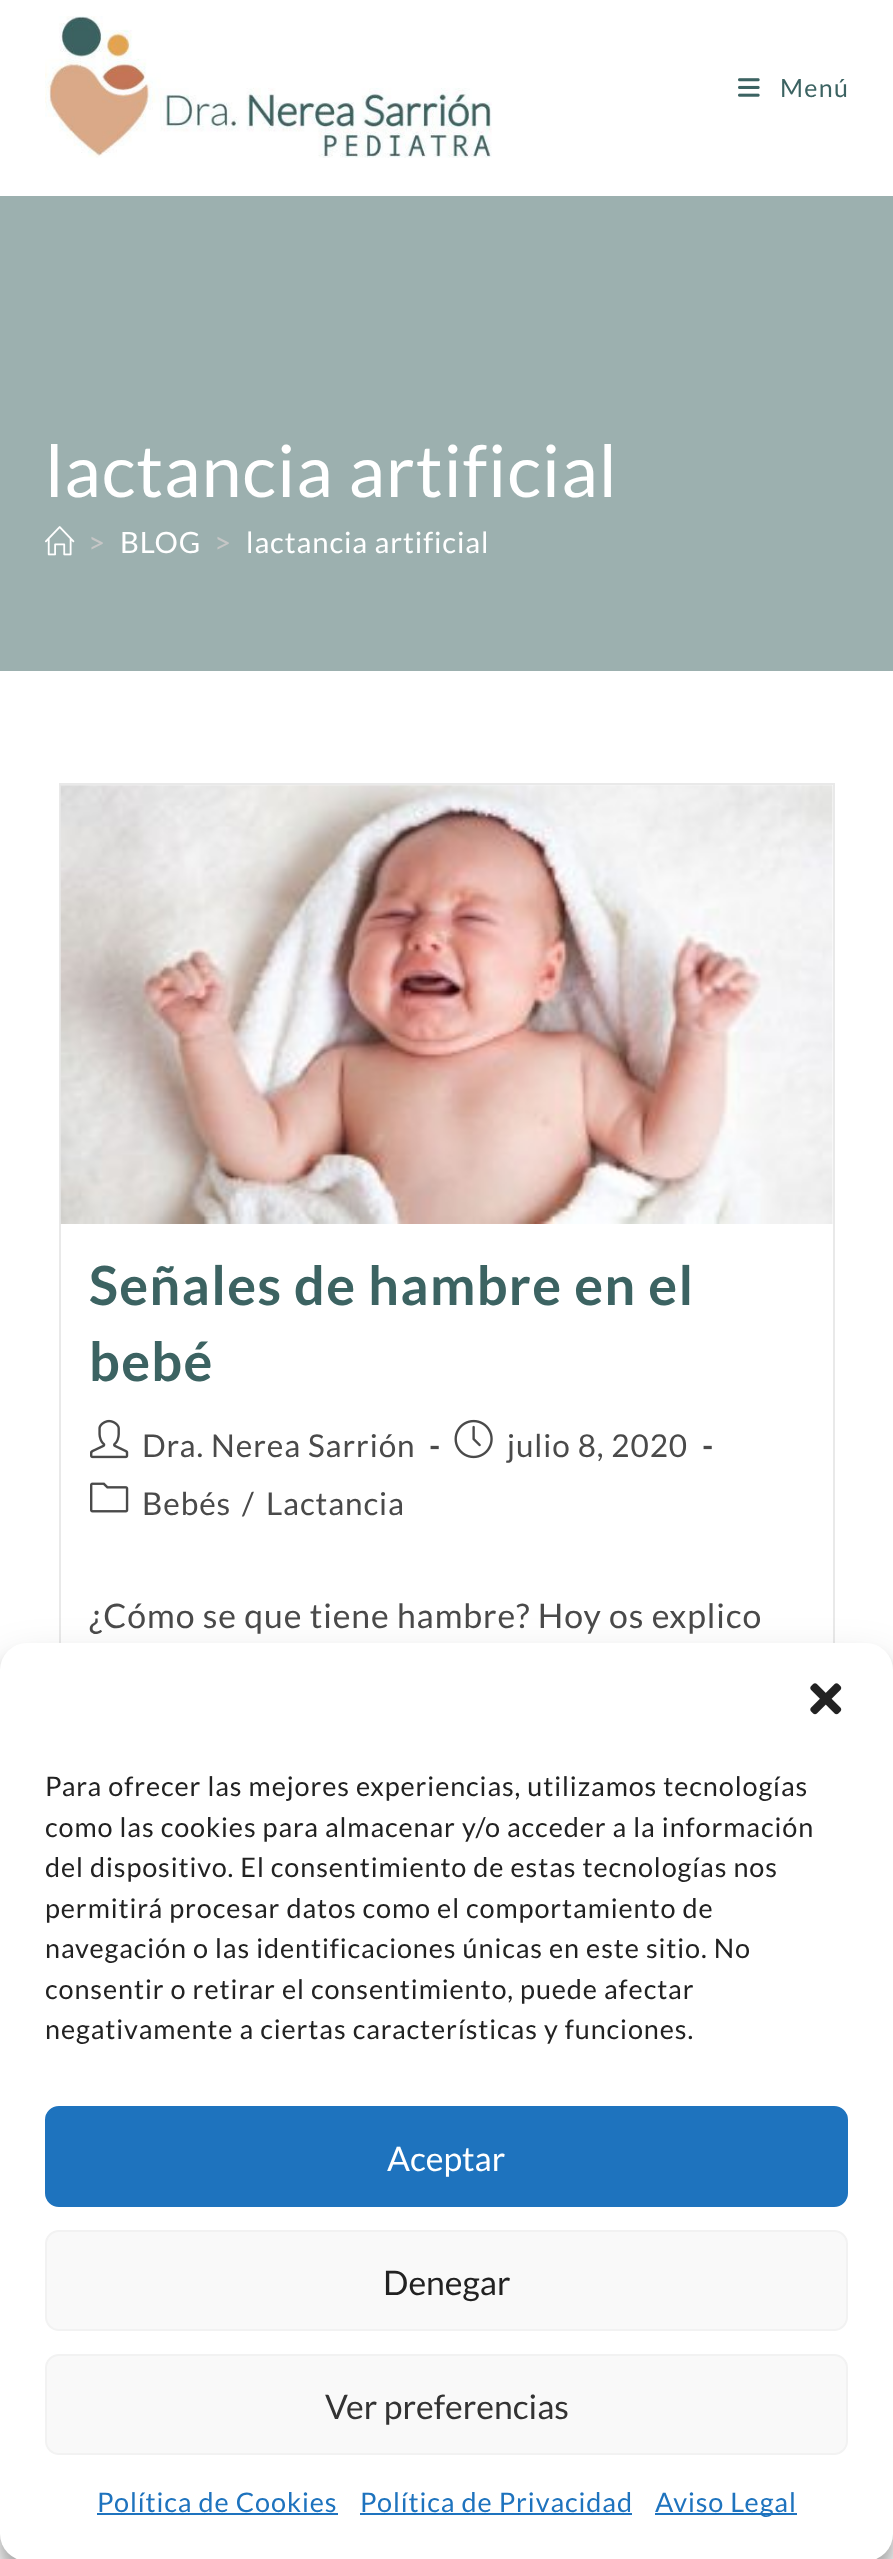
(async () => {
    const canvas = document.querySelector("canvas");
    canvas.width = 893;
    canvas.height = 2559;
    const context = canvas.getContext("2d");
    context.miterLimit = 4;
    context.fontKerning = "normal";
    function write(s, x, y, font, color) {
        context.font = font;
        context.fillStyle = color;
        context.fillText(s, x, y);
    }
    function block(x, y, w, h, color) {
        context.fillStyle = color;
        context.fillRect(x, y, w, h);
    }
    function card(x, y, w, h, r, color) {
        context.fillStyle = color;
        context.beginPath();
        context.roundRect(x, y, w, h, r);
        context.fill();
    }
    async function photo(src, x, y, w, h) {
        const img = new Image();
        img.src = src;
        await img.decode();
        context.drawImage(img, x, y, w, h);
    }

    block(0, 0, 893, 2559, "rgb(255, 255, 255)");
    await photo("media/1.png", 45, 16, 447, 142);
    await photo("media/2.png", 738, 78, 22, 19);
    context.letterSpacing = "1.35px";
    write("Menú", 780, 97, "25px Lato", "rgb(60, 99, 98)");
    block(0, 196, 893, 475, "rgb(156, 176, 175)");
    context.letterSpacing = "0.9px";
    write("lactancia artificial", 45, 497, "72px Lato", "rgb(255, 255, 255)");
    await photo("media/3.png", 45, 526, 30, 30);
    write(">", 88, 553, "29.25px Lato", "rgb(198, 198, 198)");
    write("BLOG", 120, 553, "29.25px Lato", "rgb(255, 255, 255)");
    write(">", 214, 553, "29.25px Lato", "rgb(198, 198, 198)");
    write("lactancia artificial", 246, 553, "29.25px Lato", "rgb(255, 255, 255)");
    context.strokeStyle = "rgb(233, 233, 233)";
    context.lineWidth = 2;
    context.strokeRect(60, 784, 774, 1155);
    await photo("media/4.png", 60, 785, 773, 439);
    context.letterSpacing = "1.35px";
    write("Señales de hambre en el", 89, 1305, "bold 54px Lato", "rgb(60, 99, 98)");
    write("bebé", 89, 1381, "bold 54px Lato", "rgb(60, 99, 98)");
    await photo("media/5.png", 90, 1419, 39, 40);
    context.letterSpacing = "0.9px";
    write("Dra. Nerea Sarrión", 142, 1457, "31.5px Lato", "rgb(74, 74, 74)");
    write("-", 429, 1457, "bold 31.5px Lato", "rgb(74, 74, 74)");
    await photo("media/6.png", 454, 1419, 39, 40);
    write("julio 8, 2020", 507, 1457, "31.5px Lato", "rgb(74, 74, 74)");
    write("-", 702, 1457, "bold 31.5px Lato", "rgb(74, 74, 74)");
    await photo("media/7.png", 90, 1482, 39, 31);
    write("Bebés", 142, 1515, "31.5px Lato", "rgb(74, 74, 74)");
    write("/", 242, 1515, "31.5px Lato", "rgb(74, 74, 74)");
    write("Lactancia", 266, 1515, "31.5px Lato", "rgb(74, 74, 74)");
    write("¿Cómo se que tiene hambre? Hoy os explico", 89, 1628, "33.75px Lato", "rgb(74, 74, 74)");
    context.fillStyle = "rgba(0, 0, 0, 0.23)";
    context.filter = "blur(7px)";
    context.beginPath();
    context.roundRect(0, 1656, 893, 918, 27);
    context.fill();
    context.filter = "none";
    context.fillStyle = "rgba(0, 0, 0, 0.19)";
    context.filter = "blur(22.5px)";
    context.beginPath();
    context.roundRect(0, 1665, 893, 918, 27);
    context.fill();
    context.filter = "none";
    card(0, 1643, 893, 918, 27, "rgb(255, 255, 255)");
    await photo("media/8.png", 810, 1683, 32, 32);
    write("Para ofrecer las mejores experiencias, utilizamos tecnologías", 45, 1796, "27px Lato", "rgb(34, 34, 34)");
    write("como las cookies para almacenar y/o acceder a la información", 45, 1837, "27px Lato", "rgb(34, 34, 34)");
    write("del dispositivo. El consentimiento de estas tecnologías nos", 45, 1877, "27px Lato", "rgb(34, 34, 34)");
    write("permitirá procesar datos como el comportamiento de", 45, 1918, "27px Lato", "rgb(34, 34, 34)");
    write("navegación o las identificaciones únicas en este sitio. No", 45, 1958, "27px Lato", "rgb(34, 34, 34)");
    write("consentir o retirar el consentimiento, puede afectar", 45, 1999, "27px Lato", "rgb(34, 34, 34)");
    write("negativamente a ciertas características y funciones.", 45, 2039, "27px Lato", "rgb(34, 34, 34)");
    context.fillStyle = "rgb(30, 115, 190)";
    context.beginPath();
    context.roundRect(46, 2107, 801, 99, 13);
    context.fill();
    context.strokeStyle = "rgb(30, 115, 190)";
    context.stroke();
    context.letterSpacing = "0px";
    write("Aceptar", 387, 2171, "33.75px Lato", "rgb(255, 255, 255)");
    context.fillStyle = "rgb(249, 249, 249)";
    context.beginPath();
    context.roundRect(46, 2231, 801, 99, 13);
    context.fill();
    context.strokeStyle = "rgb(242, 242, 242)";
    context.stroke();
    write("Denegar", 383, 2295, "33.75px Lato", "rgb(34, 34, 34)");
    context.fillStyle = "rgb(249, 249, 249)";
    context.beginPath();
    context.roundRect(46, 2355, 801, 99, 13);
    context.fill();
    context.stroke();
    write("Ver preferencias", 325, 2419, "33.75px Lato", "rgb(51, 51, 51)");
    context.letterSpacing = "0.9px";
    write("Política de Cookies", 97, 2512, "27px Lato", "rgb(30, 115, 190)");
    block(97, 2513, 241, 2, "rgb(30, 115, 190)");
    write("Política de Privacidad", 360, 2512, "27px Lato", "rgb(30, 115, 190)");
    block(360, 2513, 272, 2, "rgb(30, 115, 190)");
    block(655, 2513, 142, 2, "rgb(30, 115, 190)");
    write("Aviso Legal", 655, 2512, "27px Lato", "rgb(30, 115, 190)");
})();
